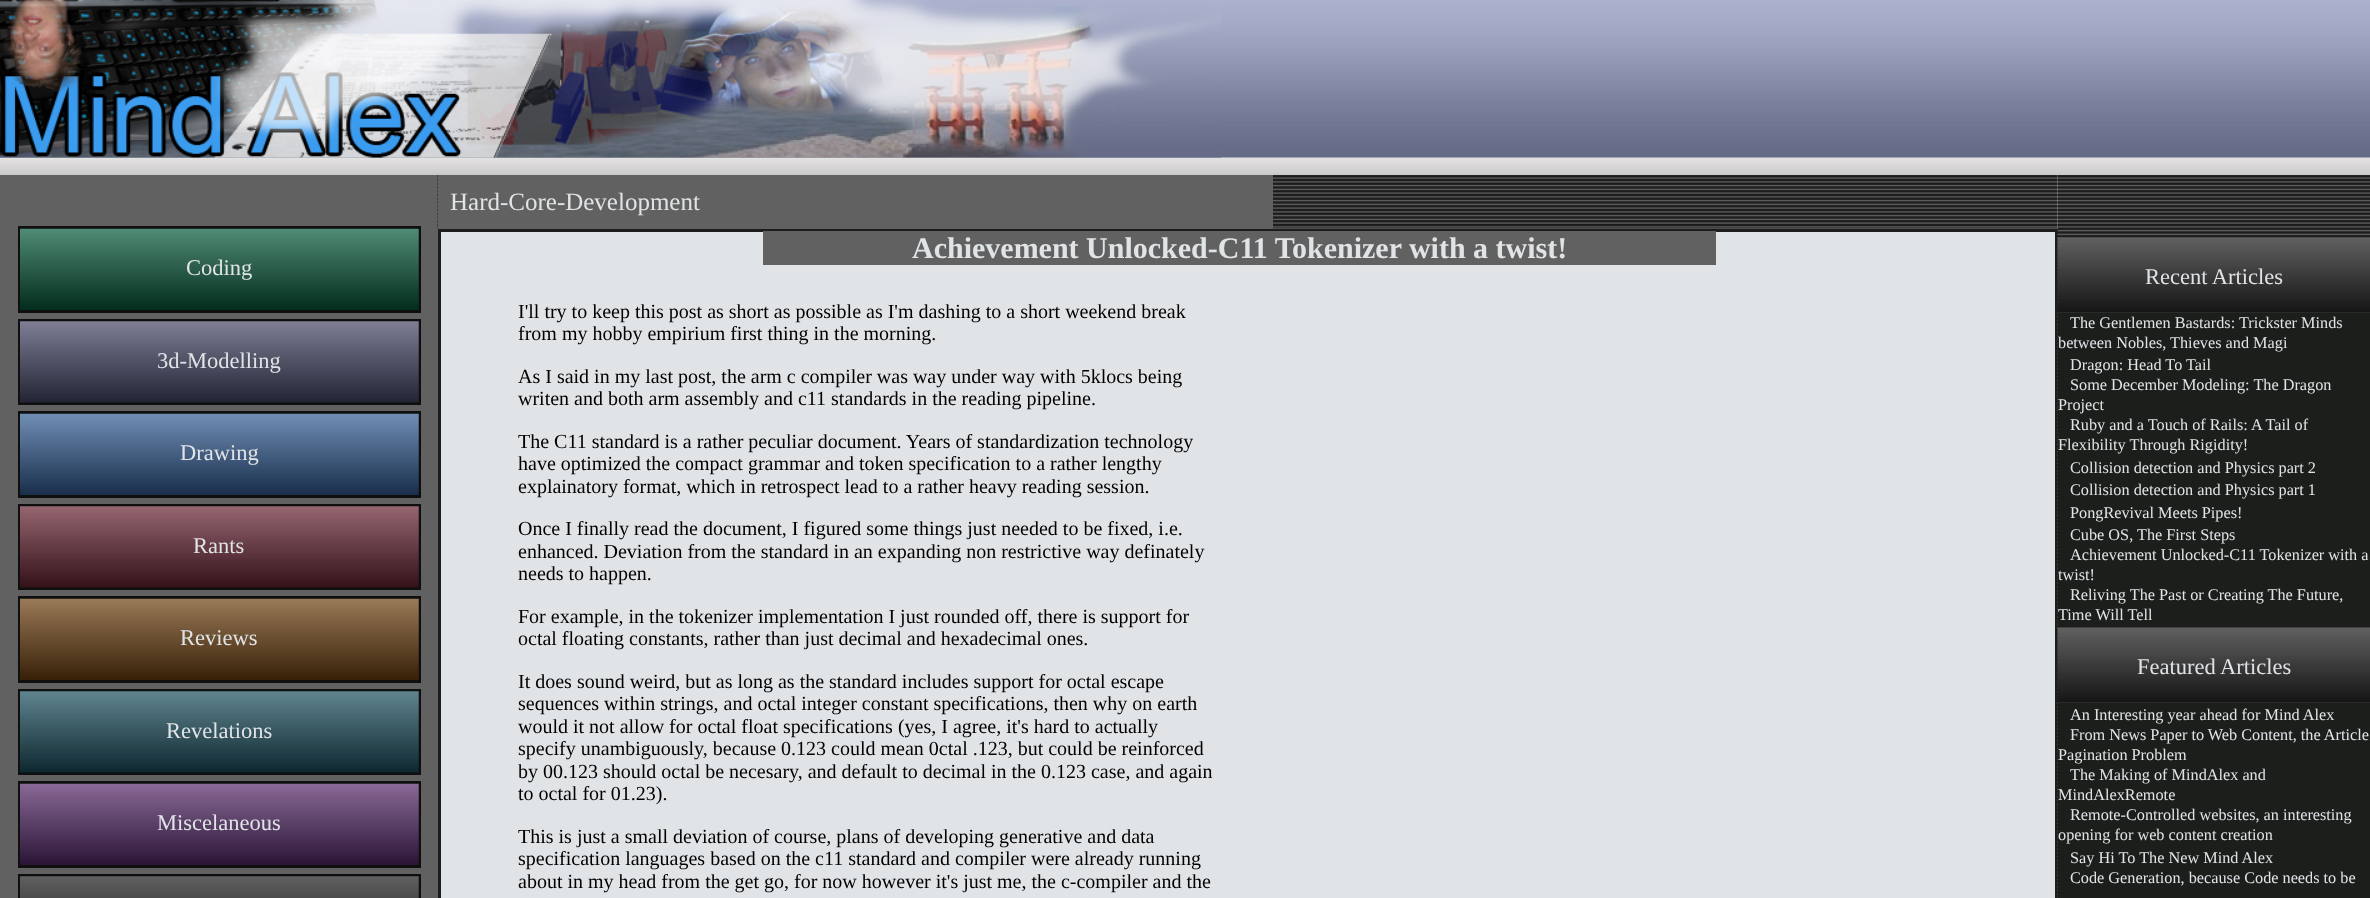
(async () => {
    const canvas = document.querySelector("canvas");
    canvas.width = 2370;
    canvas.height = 898;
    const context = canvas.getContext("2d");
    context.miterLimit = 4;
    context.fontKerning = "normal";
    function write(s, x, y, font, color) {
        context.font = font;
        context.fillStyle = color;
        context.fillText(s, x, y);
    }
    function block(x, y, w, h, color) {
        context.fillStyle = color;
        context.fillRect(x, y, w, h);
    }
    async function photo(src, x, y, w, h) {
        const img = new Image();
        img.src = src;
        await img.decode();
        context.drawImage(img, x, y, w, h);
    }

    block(0, 0, 2370, 898, "rgb(225, 228, 231)");
    await photo("media/1.png", 0, 0, 2370, 175);
    await photo("media/2.png", 0, 0, 1222, 158);
    block(0, 175, 438, 723, "rgb(96, 97, 96)");
    context.strokeStyle = "rgb(14, 15, 14)";
    context.lineWidth = 3;
    context.strokeRect(19.5, 227.5, 400, 84);
    await photo("media/3.png", 20, 228, 399, 82);
    write("Coding", 186, 275, "22.5px Liberation Serif", "rgb(225, 228, 231)");
    context.strokeRect(19.5, 320.5, 400, 83);
    await photo("media/4.png", 20, 321, 399, 82);
    write("3d-Modelling", 157, 368, "22.5px Liberation Serif", "rgb(225, 228, 231)");
    context.strokeRect(19.5, 412.5, 400, 84);
    await photo("media/5.png", 20, 413, 399, 82);
    write("Drawing", 180, 460, "22.5px Liberation Serif", "rgb(225, 228, 231)");
    context.strokeRect(19.5, 505.5, 400, 83);
    await photo("media/6.png", 20, 506, 399, 82);
    write("Rants", 193, 553, "22.5px Liberation Serif", "rgb(225, 228, 231)");
    context.strokeRect(19.5, 597.5, 400, 84);
    await photo("media/7.png", 20, 598, 399, 82);
    write("Reviews", 180, 645, "22.5px Liberation Serif", "rgb(225, 228, 231)");
    context.strokeRect(19.5, 690.5, 400, 83);
    await photo("media/8.png", 20, 691, 399, 82);
    write("Revelations", 166, 738, "22.5px Liberation Serif", "rgb(225, 228, 231)");
    context.strokeRect(19.5, 782.5, 400, 84);
    await photo("media/9.png", 20, 783, 399, 82);
    write("Miscelaneous", 157, 830, "22.5px Liberation Serif", "rgb(225, 228, 231)");
    context.strokeRect(19.5, 875.5, 400, 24);
    await photo("media/10.png", 20, 876, 399, 22);
    context.strokeStyle = "rgb(28, 30, 28)";
    context.strokeRect(439.5, 230.5, 1617, 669);
    await photo("media/12.png", 2057, 175, 313, 723);
    await photo("media/11.png", 437, 175, 1621, 54);
    block(438, 175, 835, 54, "rgb(96, 97, 96)");
    write("Hard-Core-Development", 450, 210, "25px Liberation Serif", "rgb(225, 228, 231)");
    block(763, 231, 953, 34, "rgb(96, 97, 96)");
    write("Achievement Unlocked-C11 Tokenizer with a twist!", 912, 258, "bold 30px Liberation Serif", "rgb(225, 228, 231)");
    write("I'll try to keep this post as short as possible as I'm dashing to a short weekend break", 518, 318, "20px Liberation Serif", "rgb(0, 0, 0)");
    write("from my hobby empirium first thing in the morning.", 518, 340, "20px Liberation Serif", "rgb(0, 0, 0)");
    write("As I said in my last post, the arm c compiler was way under way with 5klocs being", 518, 383, "20px Liberation Serif", "rgb(0, 0, 0)");
    write("writen and both arm assembly and c11 standards in the reading pipeline.", 518, 405, "20px Liberation Serif", "rgb(0, 0, 0)");
    write("The C11 standard is a rather peculiar document. Years of standardization technology", 518, 448, "20px Liberation Serif", "rgb(0, 0, 0)");
    write("have optimized the compact grammar and token specification to a rather lengthy", 518, 470, "20px Liberation Serif", "rgb(0, 0, 0)");
    write("explainatory format, which in retrospect lead to a rather heavy reading session.", 518, 493, "20px Liberation Serif", "rgb(0, 0, 0)");
    write("Once I finally read the document, I figured some things just needed to be fixed, i.e.", 518, 535, "20px Liberation Serif", "rgb(0, 0, 0)");
    write("enhanced. Deviation from the standard in an expanding non restrictive way definately", 518, 558, "20px Liberation Serif", "rgb(0, 0, 0)");
    write("needs to happen.", 518, 580, "20px Liberation Serif", "rgb(0, 0, 0)");
    write("For example, in the tokenizer implementation I just rounded off, there is support for", 518, 623, "20px Liberation Serif", "rgb(0, 0, 0)");
    write("octal floating constants, rather than just decimal and hexadecimal ones.", 518, 645, "20px Liberation Serif", "rgb(0, 0, 0)");
    write("It does sound weird, but as long as the standard includes support for octal escape", 518, 688, "20px Liberation Serif", "rgb(0, 0, 0)");
    write("sequences within strings, and octal integer constant specifications, then why on earth", 518, 710, "20px Liberation Serif", "rgb(0, 0, 0)");
    write("would it not allow for octal float specifications (yes, I agree, it's hard to actually", 518, 733, "20px Liberation Serif", "rgb(0, 0, 0)");
    write("specify unambiguously, because 0.123 could mean 0ctal .123, but could be reinforced", 518, 755, "20px Liberation Serif", "rgb(0, 0, 0)");
    write("by 00.123 should octal be necesary, and default to decimal in the 0.123 case, and again", 518, 778, "20px Liberation Serif", "rgb(0, 0, 0)");
    write("to octal for 01.23).", 518, 800, "20px Liberation Serif", "rgb(0, 0, 0)");
    write("This is just a small deviation of course, plans of developing generative and data", 518, 843, "20px Liberation Serif", "rgb(0, 0, 0)");
    write("specification languages based on the c11 standard and compiler were already running", 518, 865, "20px Liberation Serif", "rgb(0, 0, 0)");
    write("about in my head from the get go, for now however it's just me, the c-compiler and the", 518, 888, "20px Liberation Serif", "rgb(0, 0, 0)");
    await photo("media/13.png", 2057, 237, 313, 76);
    write("Recent Articles", 2145, 284, "22.5px Liberation Serif", "rgb(225, 228, 231)");
    block(2058, 313, 312, 315, "rgb(28, 30, 28)");
    write("The Gentlemen Bastards: Trickster Minds", 2070, 328, "16.25px Liberation Serif", "rgb(225, 228, 231)");
    write("between Nobles, Thieves and Magi", 2058, 348, "16.25px Liberation Serif", "rgb(225, 228, 231)");
    write("Dragon: Head To Tail", 2070, 370, "16.25px Liberation Serif", "rgb(225, 228, 231)");
    write("Some December Modeling: The Dragon", 2070, 390, "16.25px Liberation Serif", "rgb(225, 228, 231)");
    write("Project", 2058, 410, "16.25px Liberation Serif", "rgb(225, 228, 231)");
    write("Ruby and a Touch of Rails: A Tail of", 2070, 430, "16.25px Liberation Serif", "rgb(225, 228, 231)");
    write("Flexibility Through Rigidity!", 2058, 450, "16.25px Liberation Serif", "rgb(225, 228, 231)");
    write("Collision detection and Physics part 2", 2070, 473, "16.25px Liberation Serif", "rgb(225, 228, 231)");
    write("Collision detection and Physics part 1", 2070, 495, "16.25px Liberation Serif", "rgb(225, 228, 231)");
    write("PongRevival Meets Pipes!", 2070, 518, "16.25px Liberation Serif", "rgb(225, 228, 231)");
    write("Cube OS, The First Steps", 2070, 540, "16.25px Liberation Serif", "rgb(225, 228, 231)");
    write("Achievement Unlocked-C11 Tokenizer with a", 2070, 560, "16.25px Liberation Serif", "rgb(225, 228, 231)");
    write("twist!", 2058, 580, "16.25px Liberation Serif", "rgb(225, 228, 231)");
    write("Reliving The Past or Creating The Future,", 2070, 600, "16.25px Liberation Serif", "rgb(225, 228, 231)");
    write("Time Will Tell", 2058, 620, "16.25px Liberation Serif", "rgb(225, 228, 231)");
    await photo("media/14.png", 2057, 627, 313, 76);
    write("Featured Articles", 2137, 674, "22.5px Liberation Serif", "rgb(225, 228, 231)");
    block(2058, 703, 312, 195, "rgb(28, 30, 28)");
    write("An Interesting year ahead for Mind Alex", 2070, 720, "16.25px Liberation Serif", "rgb(225, 228, 231)");
    write("From News Paper to Web Content, the Article", 2070, 740, "16.25px Liberation Serif", "rgb(225, 228, 231)");
    write("Pagination Problem", 2058, 760, "16.25px Liberation Serif", "rgb(225, 228, 231)");
    write("The Making of MindAlex and", 2070, 780, "16.25px Liberation Serif", "rgb(225, 228, 231)");
    write("MindAlexRemote", 2058, 800, "16.25px Liberation Serif", "rgb(225, 228, 231)");
    write("Remote-Controlled websites, an interesting", 2070, 820, "16.25px Liberation Serif", "rgb(225, 228, 231)");
    write("opening for web content creation", 2058, 840, "16.25px Liberation Serif", "rgb(225, 228, 231)");
    write("Say Hi To The New Mind Alex", 2070, 863, "16.25px Liberation Serif", "rgb(225, 228, 231)");
    write("Code Generation, because Code needs to be", 2070, 883, "16.25px Liberation Serif", "rgb(225, 228, 231)");
})();
